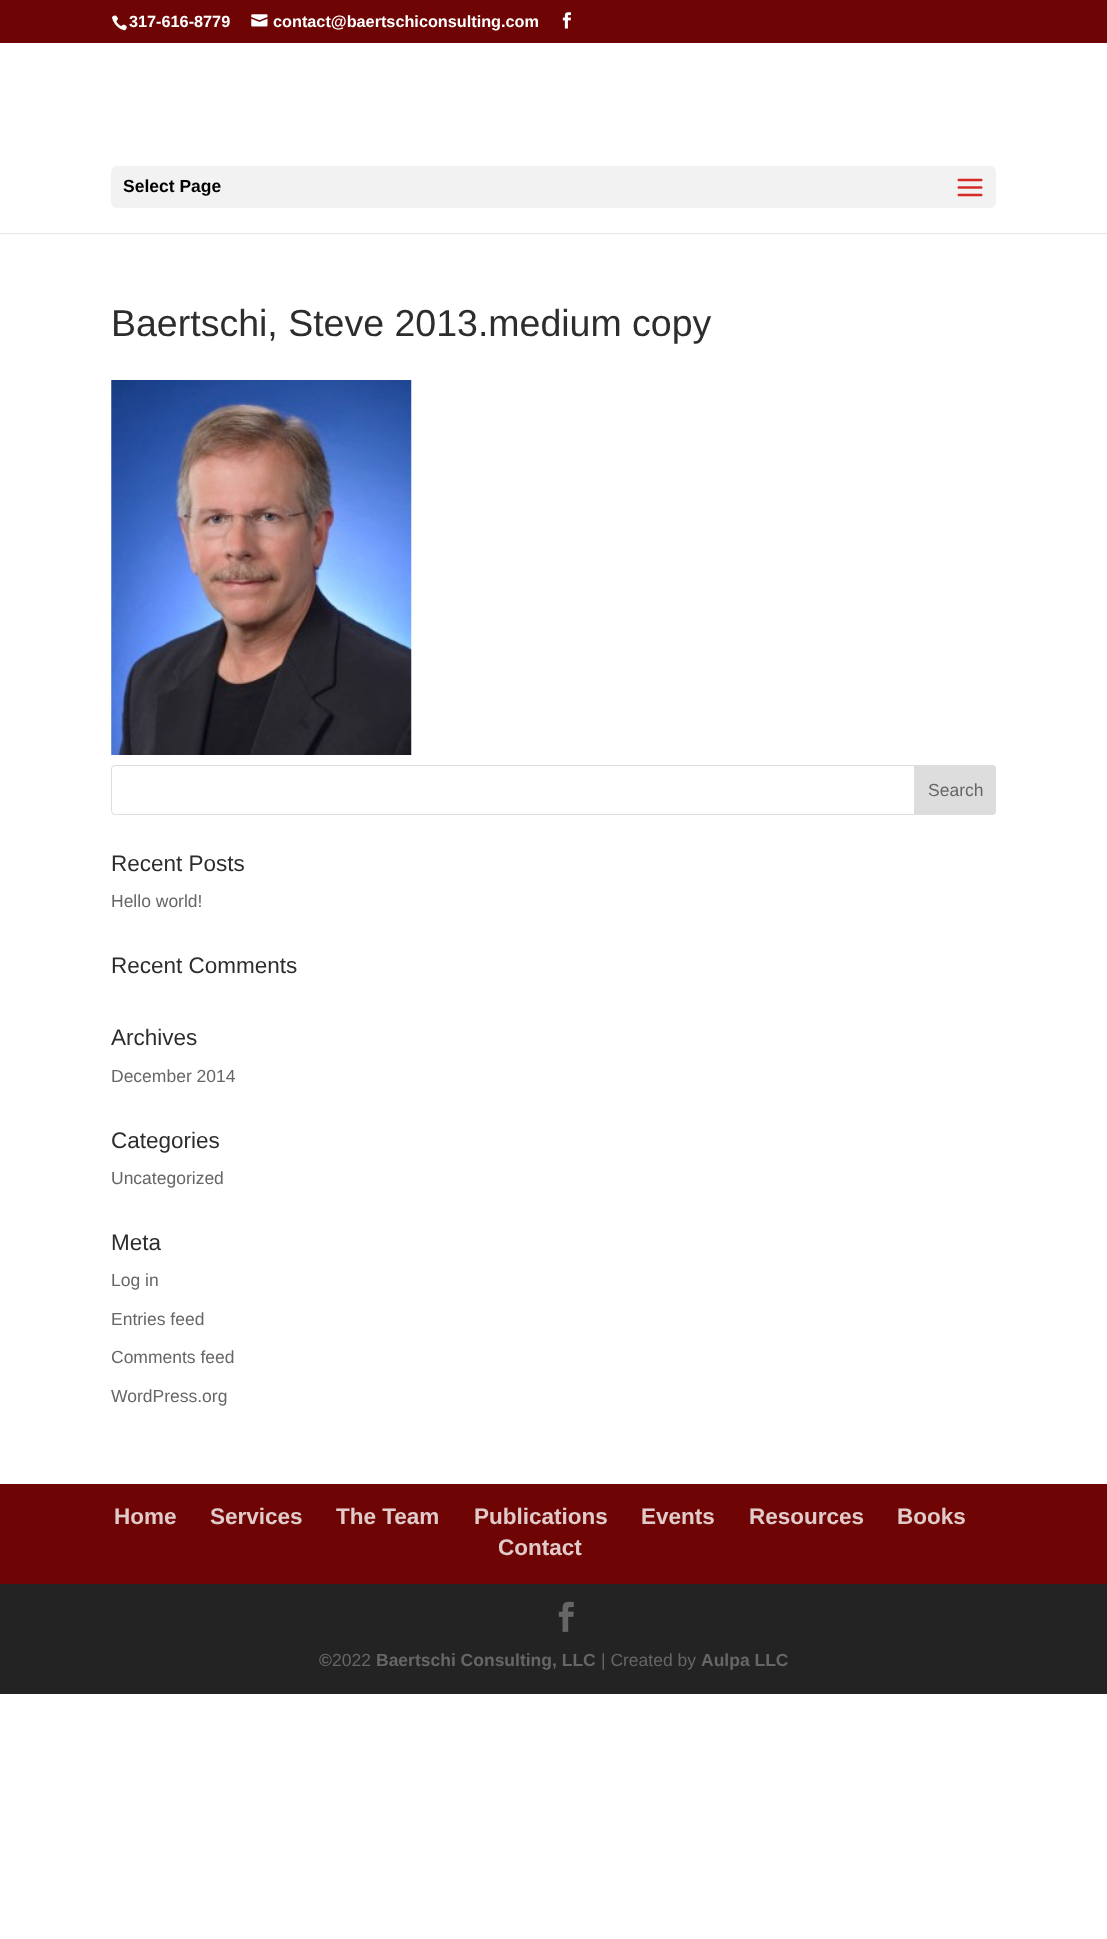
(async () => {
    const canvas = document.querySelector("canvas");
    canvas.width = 1107;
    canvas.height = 1939;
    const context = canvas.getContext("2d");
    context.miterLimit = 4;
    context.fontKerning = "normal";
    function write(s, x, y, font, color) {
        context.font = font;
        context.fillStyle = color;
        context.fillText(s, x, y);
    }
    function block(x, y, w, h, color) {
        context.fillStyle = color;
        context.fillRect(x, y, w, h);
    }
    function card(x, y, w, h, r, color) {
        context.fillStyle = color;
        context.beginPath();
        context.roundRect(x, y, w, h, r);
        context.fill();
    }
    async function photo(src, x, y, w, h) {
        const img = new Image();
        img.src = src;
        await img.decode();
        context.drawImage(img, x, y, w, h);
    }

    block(0, 0, 1107, 1939, "rgb(255, 255, 255)");
    block(0, 0, 1107, 43, "rgb(110, 5, 4)");
    await photo("media/1.png", 111, 15, 16, 16);
    write("317-616-8779", 129, 27, "bold 16.25px Liberation Sans", "rgb(255, 255, 255)");
    await photo("media/2.png", 251, 14, 17, 13);
    write("contact@baertschiconsulting.com", 273, 27, "bold 16.25px Liberation Sans", "rgb(255, 255, 255)");
    await photo("media/3.png", 562, 12, 9, 17);
    context.fillStyle = "rgb(230, 230, 230)";
    context.beginPath();
    context.moveTo(0, 232);
    context.lineTo(0, 234);
    context.lineTo(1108, 234);
    context.lineTo(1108, 44);
    context.lineTo(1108, 232);
    context.closePath();
    context.fill();
    block(0, 232, 1107, 1, "rgb(255, 255, 255)");
    card(111, 166, 885, 42, 6, "rgb(242, 242, 242)");
    write("Select Page", 123, 192, "bold 17.5px Liberation Sans", "rgb(0, 0, 0)");
    await photo("media/4.png", 957, 178, 26, 19);
    write("Baertschi, Steve 2013.medium copy", 111, 336, "37.5px Liberation Sans", "rgb(45, 45, 45)");
    await photo("media/5.png", 111, 380, 301, 375);
    context.beginPath();
    context.roundRect(111.5, 765.5, 884, 49, 3.5);
    context.strokeStyle = "rgb(221, 221, 221)";
    context.stroke();
    context.fillStyle = "rgb(221, 221, 221)";
    context.beginPath();
    context.roundRect(914.5, 765.5, 81, 49, [0, 3.5, 3.5, 0]);
    context.fill();
    context.stroke();
    write("Search", 928, 796, "17.5px Liberation Sans", "rgb(102, 102, 102)");
    write("Recent Posts", 111, 871, "22.5px Liberation Sans", "rgb(45, 45, 45)");
    write("Hello world!", 111, 907, "17.5px Liberation Sans", "rgb(102, 102, 102)");
    write("Recent Comments", 111, 973, "22.5px Liberation Sans", "rgb(45, 45, 45)");
    write("Archives", 111, 1045, "22.5px Liberation Sans", "rgb(45, 45, 45)");
    write("December 2014", 111, 1082, "17.5px Liberation Sans", "rgb(102, 102, 102)");
    write("Categories", 111, 1148, "22.5px Liberation Sans", "rgb(45, 45, 45)");
    write("Uncategorized", 111, 1184, "17.5px Liberation Sans", "rgb(102, 102, 102)");
    write("Meta", 111, 1250, "22.5px Liberation Sans", "rgb(45, 45, 45)");
    write("Log in", 111, 1286, "17.5px Liberation Sans", "rgb(102, 102, 102)");
    write("Entries feed", 111, 1325, "17.5px Liberation Sans", "rgb(102, 102, 102)");
    write("Comments feed", 111, 1363, "17.5px Liberation Sans", "rgb(102, 102, 102)");
    write("WordPress.org", 111, 1402, "17.5px Liberation Sans", "rgb(102, 102, 102)");
    block(0, 1484, 1107, 100, "rgb(110, 5, 4)");
    write("Home", 114, 1524, "bold 22.5px Liberation Sans", "rgb(225, 203, 202)");
    write("Services", 210, 1524, "bold 22.5px Liberation Sans", "rgb(225, 203, 202)");
    write("The Team", 336, 1524, "bold 22.5px Liberation Sans", "rgb(225, 203, 202)");
    write("Publications", 474, 1524, "bold 22.5px Liberation Sans", "rgb(225, 203, 202)");
    write("Events", 641, 1524, "bold 22.5px Liberation Sans", "rgb(225, 203, 202)");
    write("Resources", 749, 1524, "bold 22.5px Liberation Sans", "rgb(225, 203, 202)");
    write("Books", 897, 1524, "bold 22.5px Liberation Sans", "rgb(225, 203, 202)");
    write("Contact", 498, 1555, "bold 22.5px Liberation Sans", "rgb(225, 203, 202)");
    block(0, 1584, 1107, 110, "rgb(35, 35, 35)");
    await photo("media/6.png", 558, 1601, 16, 31);
    write("©", 319, 1666, "bold 17.5px Liberation Sans", "rgb(102, 102, 102)");
    write("2022", 332, 1666, "17.5px Liberation Sans", "rgb(102, 102, 102)");
    write("Baertschi Consulting, LLC", 376, 1666, "bold 17.5px Liberation Sans", "rgb(102, 102, 102)");
    write("| Created by", 601, 1666, "17.5px Liberation Sans", "rgb(102, 102, 102)");
    write("Aulpa LLC", 701, 1666, "bold 17.5px Liberation Sans", "rgb(102, 102, 102)");
})();
